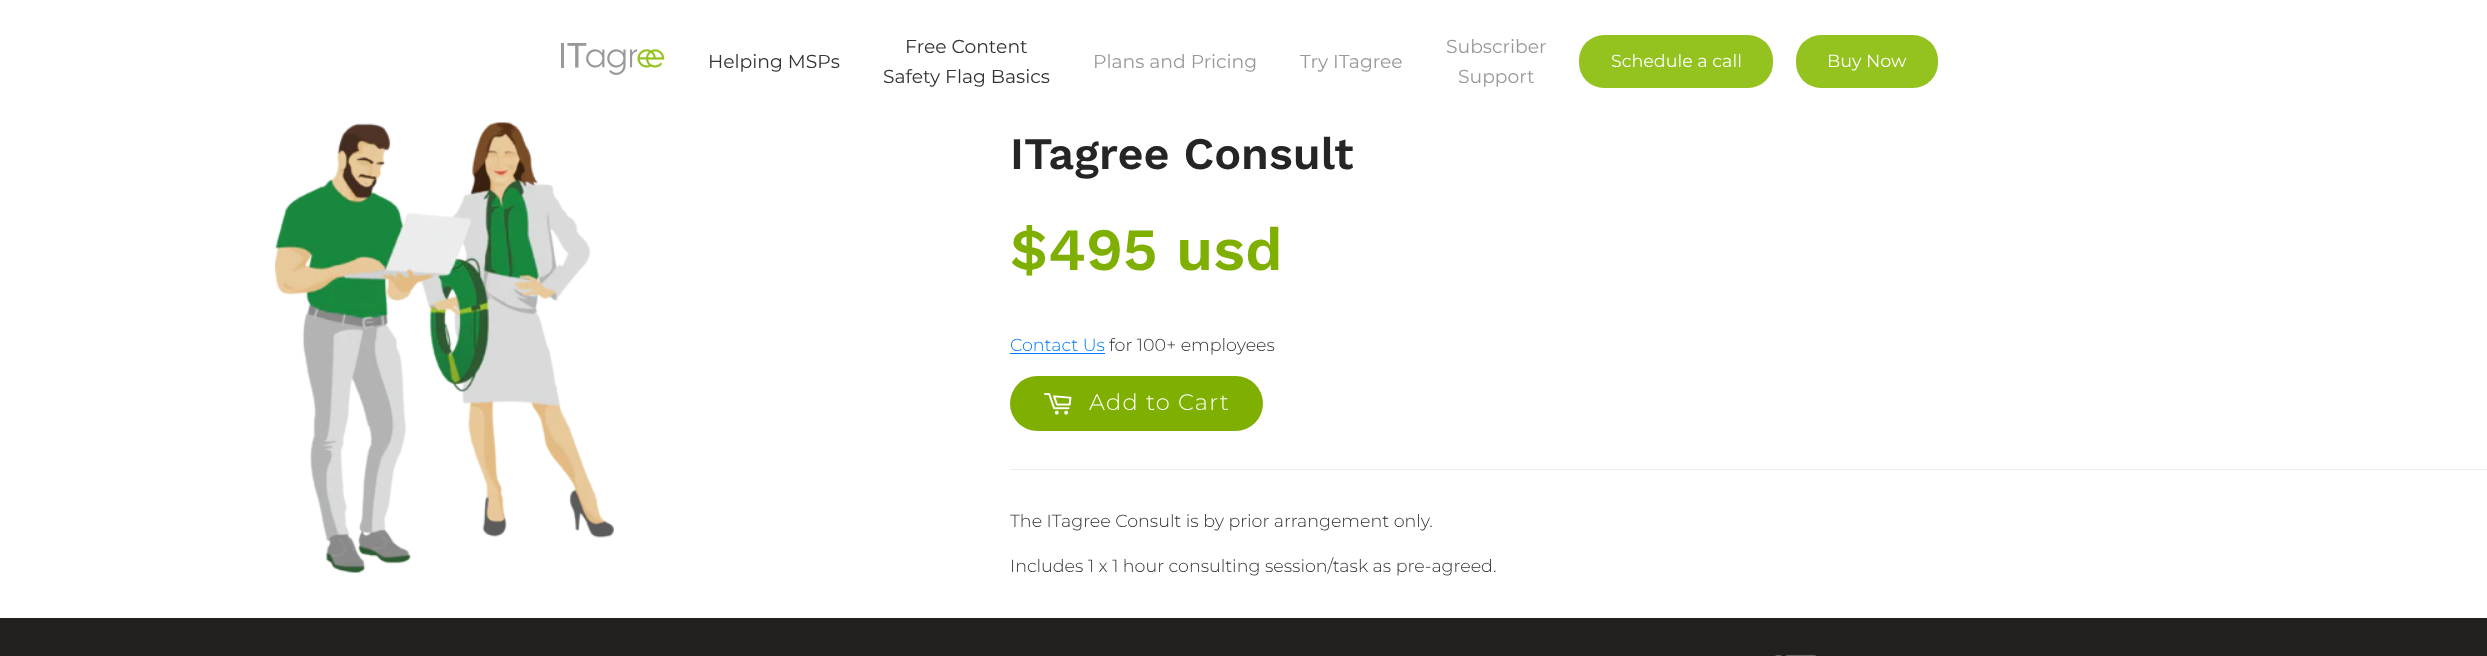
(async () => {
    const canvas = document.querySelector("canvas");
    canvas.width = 2487;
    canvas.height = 656;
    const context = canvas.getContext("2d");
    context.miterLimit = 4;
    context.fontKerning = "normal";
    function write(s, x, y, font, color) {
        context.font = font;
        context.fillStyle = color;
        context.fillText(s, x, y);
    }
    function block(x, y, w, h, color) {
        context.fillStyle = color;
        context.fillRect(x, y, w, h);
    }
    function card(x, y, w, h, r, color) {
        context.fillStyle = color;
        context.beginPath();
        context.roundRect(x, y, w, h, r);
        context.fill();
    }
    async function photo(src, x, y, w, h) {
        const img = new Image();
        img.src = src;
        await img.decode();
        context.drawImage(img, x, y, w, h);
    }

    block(0, 0, 2487, 656, "rgb(255, 255, 255)");
    await photo("media/1.png", 561, 43, 104, 32);
    write("Helping MSPs", 708, 68, "18.75px Montserrat", "rgb(51, 51, 51)");
    write("Free Content", 905, 53, "18.75px Montserrat", "rgb(51, 51, 51)");
    write("Safety Flag Basics", 883, 83, "18.75px Montserrat", "rgb(51, 51, 51)");
    write("Plans and Pricing", 1093, 68, "18.75px Montserrat", "rgb(153, 153, 153)");
    write("Try ITagree", 1300, 68, "18.75px Montserrat", "rgb(153, 153, 153)");
    write("Subscriber", 1446, 53, "18.75px Montserrat", "rgb(153, 153, 153)");
    write("Support", 1458, 83, "18.75px Montserrat", "rgb(153, 153, 153)");
    card(1579, 35, 194, 53, 25, "rgb(148, 194, 31)");
    write("Schedule a call", 1611, 67, "17.5px Montserrat", "rgb(252, 253, 249)");
    card(1796, 35, 142, 53, 25, "rgb(148, 194, 31)");
    write("Buy Now", 1827, 67, "17.5px Montserrat", "rgb(252, 253, 249)");
    await photo("media/2.png", 275, 122, 339, 451);
    write("ITagree Consult", 1010, 169, "600 45px Work Sans", "rgb(37, 37, 37)");
    write("$495 usd", 1010, 270, "600 60px Work Sans", "rgb(127, 175, 0)");
    write("Contact Us", 1010, 351, "300 17.5px Montserrat", "rgb(0, 123, 255)");
    block(1010, 353, 95, 1, "rgb(0, 123, 255)");
    write("for 100+ employees", 1109, 351, "300 17.5px Montserrat", "rgb(51, 51, 51)");
    card(1010, 376, 253, 55, 27.5, "rgb(127, 175, 0)");
    await photo("media/3.png", 1044, 393, 28, 22);
    context.letterSpacing = "1.25px";
    write("Add to Cart", 1089, 410, "300 22.5px Montserrat", "rgb(255, 255, 255)");
    block(1010, 469, 1477, 1, "rgb(236, 236, 236)");
    context.letterSpacing = "0px";
    write("The ITagree Consult is by prior arrangement only.", 1010, 527, "300 17.5px Montserrat", "rgb(51, 51, 51)");
    write("Includes 1 x 1 hour consulting session/task as pre-agreed.", 1010, 572, "300 17.5px Montserrat", "rgb(51, 51, 51)");
    block(0, 618, 2487, 38, "rgb(35, 32, 32)");
    await photo("media/4.png", 1775, 654, 42, 2);
})();
